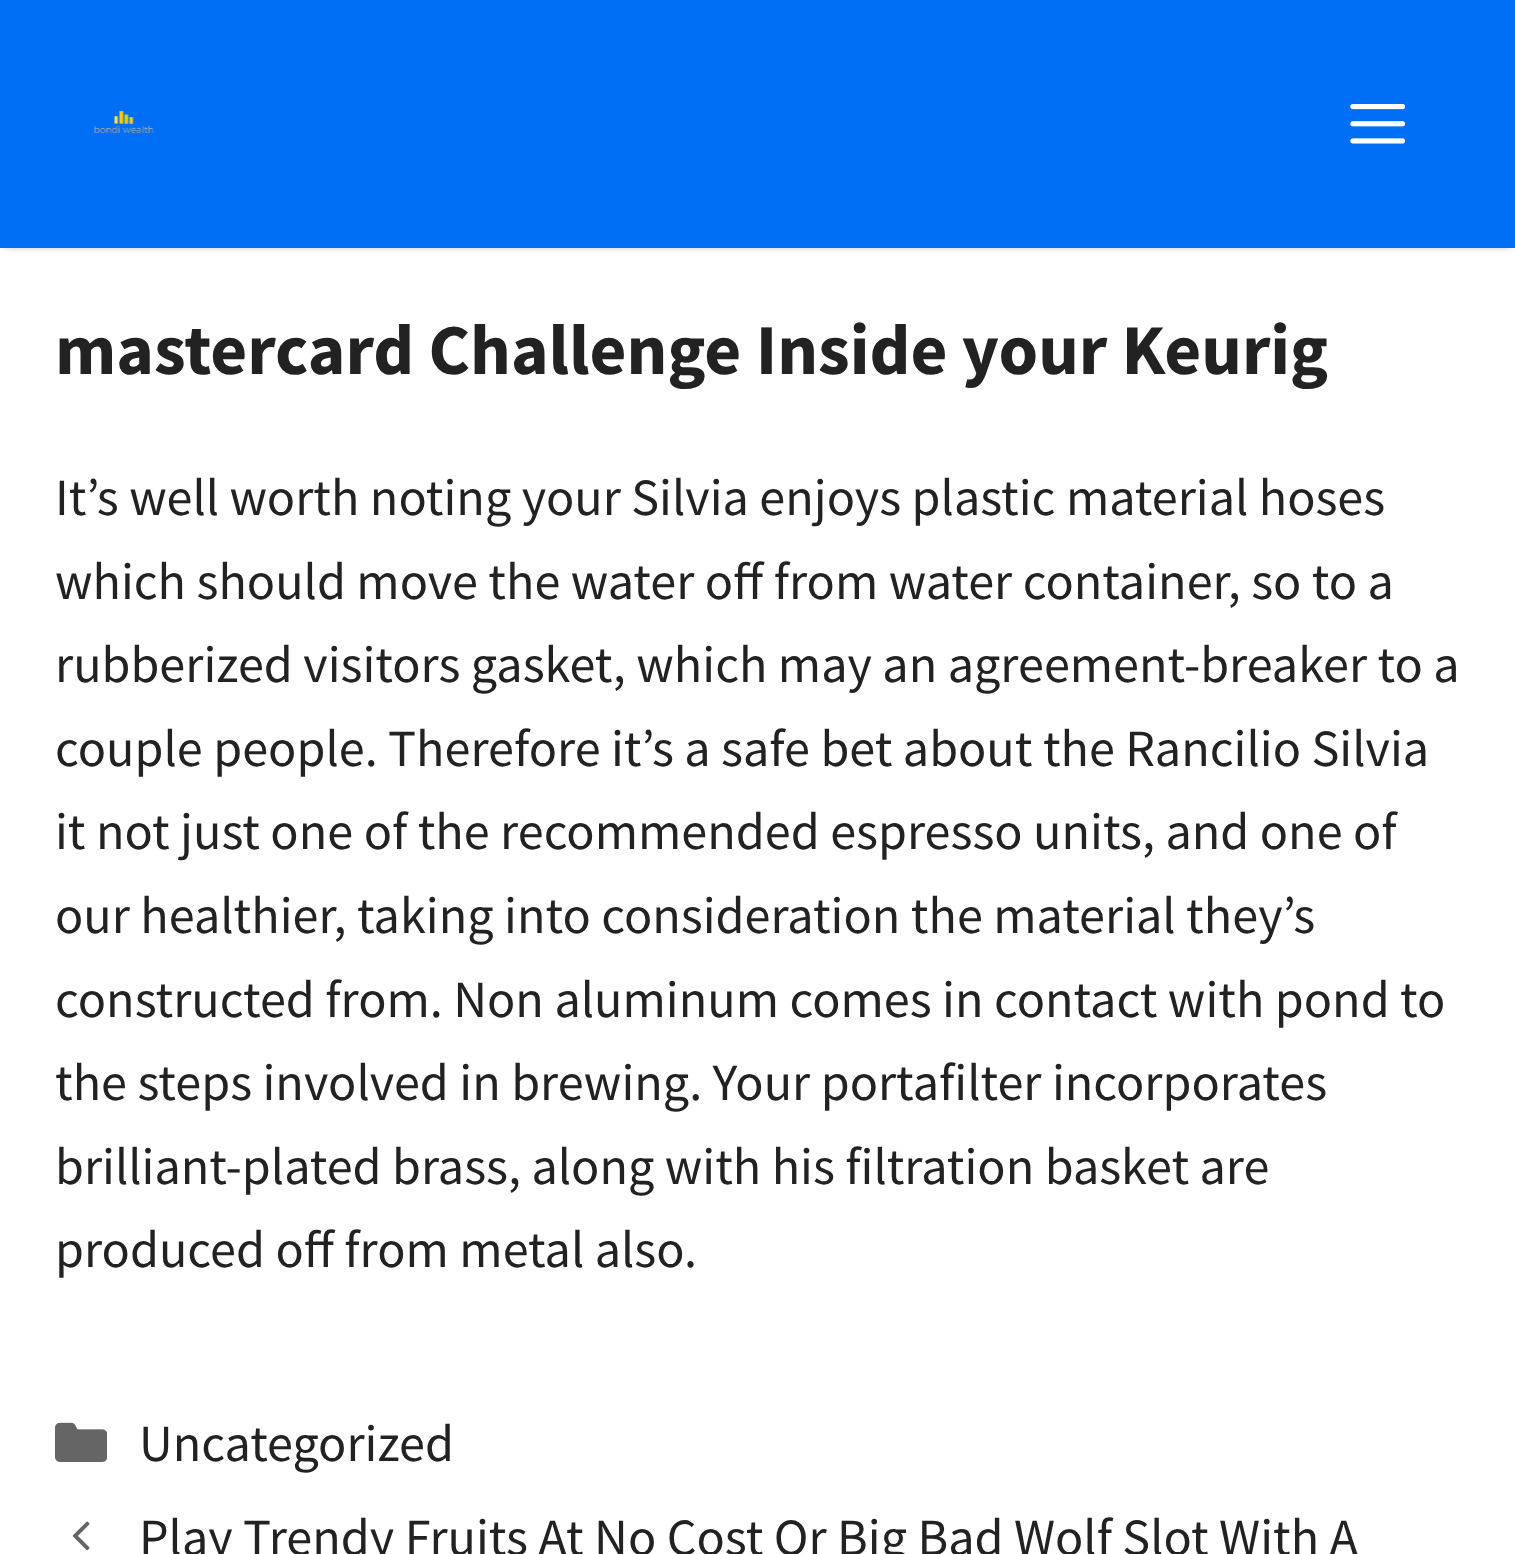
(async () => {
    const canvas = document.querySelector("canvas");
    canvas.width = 1515;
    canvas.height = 1554;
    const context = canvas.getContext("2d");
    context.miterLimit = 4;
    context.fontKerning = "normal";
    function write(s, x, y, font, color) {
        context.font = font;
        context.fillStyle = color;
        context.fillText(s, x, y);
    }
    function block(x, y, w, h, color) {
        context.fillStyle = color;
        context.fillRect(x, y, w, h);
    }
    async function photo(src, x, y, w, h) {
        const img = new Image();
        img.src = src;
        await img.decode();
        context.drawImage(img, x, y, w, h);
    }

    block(0, 0, 1515, 1554, "rgb(255, 255, 255)");
    context.fillStyle = "rgba(0, 0, 0, 0.2)";
    context.filter = "blur(3px)";
    context.beginPath();
    context.rect(6, 11, 1504, 237);
    context.fill();
    context.filter = "none";
    block(0, 0, 1515, 248, "rgb(0, 111, 245)");
    await photo("media/1.png", 94, 111, 60, 22);
    await photo("media/2.png", 1350, 104, 55, 40);
    write("mastercard Challenge Inside your Keurig", 55, 374, "bold 71.5px Source Sans Pro", "rgb(34, 34, 34)");
    write("It’s well worth noting your Silvia enjoys plastic material hoses", 55, 515, "52.25px Source Sans Pro", "rgb(34, 34, 34)");
    write("which should move the water off from water container, so to a", 55, 599, "52.25px Source Sans Pro", "rgb(34, 34, 34)");
    write("rubberized visitors gasket, which may an agreement-breaker to a", 55, 682, "52.25px Source Sans Pro", "rgb(34, 34, 34)");
    write("couple people. Therefore it’s a safe bet about the Rancilio Silvia", 55, 766, "52.25px Source Sans Pro", "rgb(34, 34, 34)");
    write("it not just one of the recommended espresso units, and one of", 55, 849, "52.25px Source Sans Pro", "rgb(34, 34, 34)");
    write("our healthier, taking into consideration the material they’s", 55, 933, "52.25px Source Sans Pro", "rgb(34, 34, 34)");
    write("constructed from. Non aluminum comes in contact with pond to", 55, 1017, "52.25px Source Sans Pro", "rgb(34, 34, 34)");
    write("the steps involved in brewing. Your portafilter incorporates", 55, 1100, "52.25px Source Sans Pro", "rgb(34, 34, 34)");
    write("brilliant-plated brass, along with his filtration basket are", 55, 1184, "52.25px Source Sans Pro", "rgb(34, 34, 34)");
    write("produced off from metal also.", 55, 1267, "52.25px Source Sans Pro", "rgb(34, 34, 34)");
    await photo("media/3.png", 55, 1422, 52, 40);
    write("Uncategorized", 139, 1461, "52.25px Source Sans Pro", "rgb(34, 34, 34)");
    await photo("media/4.png", 72, 1521, 18, 30);
    write("Play Trendy Fruits At No Cost Or Big Bad Wolf Slot With A", 139, 1555, "52.25px Source Sans Pro", "rgb(34, 34, 34)");
})();
